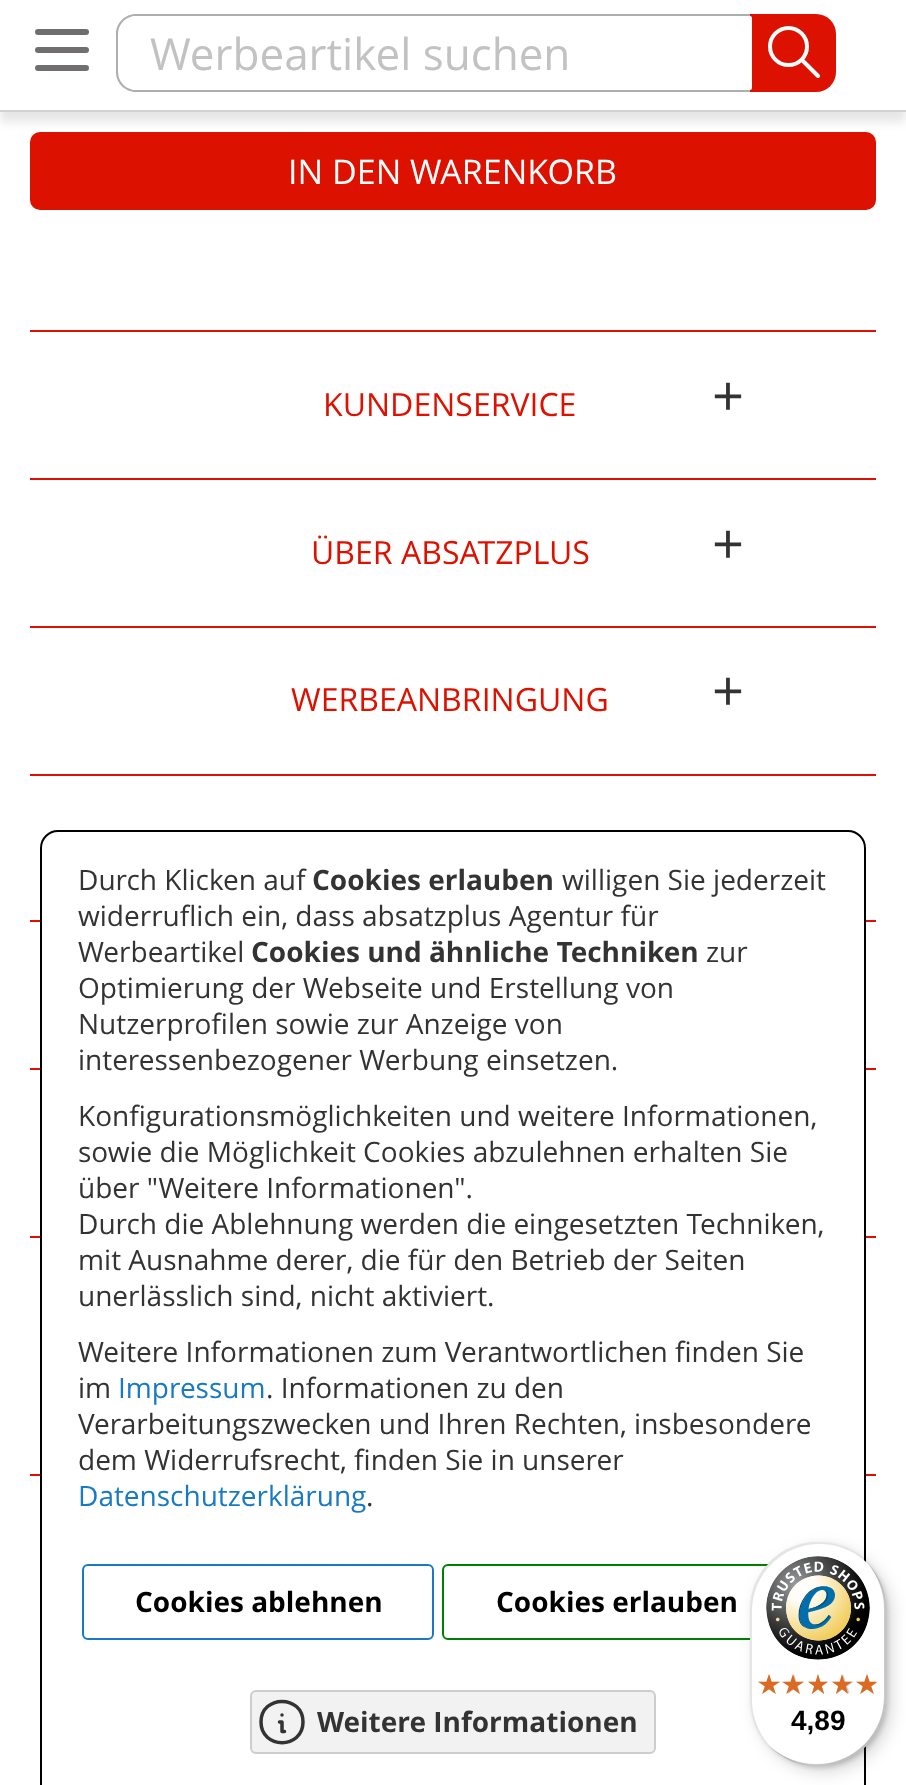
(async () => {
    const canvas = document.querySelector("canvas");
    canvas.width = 906;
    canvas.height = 1785;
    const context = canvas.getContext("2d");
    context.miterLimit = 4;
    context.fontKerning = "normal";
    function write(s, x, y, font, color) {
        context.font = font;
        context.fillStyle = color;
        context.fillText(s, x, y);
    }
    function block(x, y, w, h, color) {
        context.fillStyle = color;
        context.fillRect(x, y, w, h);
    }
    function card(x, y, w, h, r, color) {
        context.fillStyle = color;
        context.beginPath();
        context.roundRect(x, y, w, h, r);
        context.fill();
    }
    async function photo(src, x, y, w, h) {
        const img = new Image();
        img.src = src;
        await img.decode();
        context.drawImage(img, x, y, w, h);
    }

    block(0, 0, 906, 1785, "rgb(255, 255, 255)");
    card(30, 132, 846, 78, 10, "rgb(221, 17, 0)");
    context.fillStyle = "rgb(230, 230, 230)";
    context.filter = "blur(5px)";
    context.beginPath();
    context.rect(0, -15, 906, 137);
    context.fill();
    context.filter = "none";
    block(0, 0, 906, 110, "rgb(255, 255, 255)");
    block(0, 110, 906, 2, "rgb(209, 209, 209)");
    context.beginPath();
    context.moveTo(38, 32);
    context.lineTo(86, 32);
    context.moveTo(38, 50);
    context.lineTo(86, 50);
    context.moveTo(38, 68);
    context.lineTo(86, 68);
    context.strokeStyle = "rgb(112, 110, 111)";
    context.lineWidth = 6;
    context.lineCap = "round";
    context.lineJoin = "round";
    context.stroke();
    context.fillStyle = "rgb(174, 174, 174)";
    context.beginPath();
    context.moveTo(136, 14);
    context.lineTo(750, 14);
    context.lineTo(750, 92);
    context.lineTo(136, 92);
    context.bezierCurveTo(125, 92, 116, 83, 116, 72);
    context.lineTo(116, 34);
    context.bezierCurveTo(116, 23, 125, 14, 136, 14);
    context.closePath();
    context.moveTo(136, 16);
    context.lineTo(750, 16);
    context.lineTo(750, 90);
    context.lineTo(136, 90);
    context.bezierCurveTo(126, 90, 118, 82, 118, 72);
    context.lineTo(118, 34);
    context.bezierCurveTo(118, 24, 126, 16, 136, 16);
    context.closePath();
    context.fill("evenodd");
    context.fillStyle = "rgb(221, 17, 0)";
    context.beginPath();
    context.roundRect(750, 14, 86, 78, [0, 20, 20, 0]);
    context.fill();
    card(132, 16, 620, 74, 2, "rgb(255, 255, 255)");
    write("Werbeartikel suchen", 150, 70, "44px Open Sans", "rgb(194, 194, 194)");
    context.beginPath();
    context.arc(788.5, 46.5, 18.5, 0, Math.PI * 2);
    context.strokeStyle = "rgb(255, 255, 255)";
    context.lineWidth = 4;
    context.stroke();
    context.beginPath();
    context.moveTo(818, 76);
    context.lineTo(802, 60);
    context.stroke();
    write("IN DEN WARENKORB", 288, 184, "34px Open Sans", "rgb(255, 255, 255)");
    block(30, 330, 846, 2, "rgb(221, 17, 0)");
    write("KUNDENSERVICE", 323, 416, "32px Open Sans", "rgb(221, 17, 0)");
    write("+", 712, 416, "56px Open Sans", "rgb(51, 51, 51)");
    block(30, 478, 846, 2, "rgb(221, 17, 0)");
    write("ÜBER ABSATZPLUS", 311, 564, "32px Open Sans", "rgb(221, 17, 0)");
    write("+", 712, 564, "56px Open Sans", "rgb(51, 51, 51)");
    block(30, 626, 846, 2, "rgb(221, 17, 0)");
    write("WERBEANBRINGUNG", 291, 711, "32px Open Sans", "rgb(221, 17, 0)");
    write("+", 712, 711, "56px Open Sans", "rgb(51, 51, 51)");
    block(30, 774, 846, 2, "rgb(221, 17, 0)");
    block(30, 920, 846, 2, "rgb(221, 17, 0)");
    block(30, 1068, 846, 2, "rgb(221, 17, 0)");
    block(30, 1236, 846, 2, "rgb(221, 17, 0)");
    block(30, 1474, 846, 2, "rgb(221, 17, 0)");
    context.fillStyle = "rgb(255, 255, 255)";
    context.beginPath();
    context.roundRect(41, 831, 824, 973, 17);
    context.fill();
    context.strokeStyle = "rgb(0, 0, 0)";
    context.lineWidth = 2;
    context.lineJoin = "miter";
    context.stroke();
    write("Durch Klicken auf", 78, 890, "28px Open Sans", "rgb(51, 51, 51)");
    write("Cookies erlauben", 312, 890, "bold 28px Open Sans", "rgb(51, 51, 51)");
    write("willigen Sie jederzeit", 562, 890, "28px Open Sans", "rgb(51, 51, 51)");
    write("widerruflich ein, dass absatzplus Agentur für", 78, 926, "28px Open Sans", "rgb(51, 51, 51)");
    write("Werbeartikel", 78, 962, "28px Open Sans", "rgb(51, 51, 51)");
    write("Cookies und ähnliche Techniken", 251, 962, "bold 28px Open Sans", "rgb(51, 51, 51)");
    write("zur", 706, 962, "28px Open Sans", "rgb(51, 51, 51)");
    write("Optimierung der Webseite und Erstellung von", 78, 998, "28px Open Sans", "rgb(51, 51, 51)");
    write("Nutzerprofilen sowie zur Anzeige von", 78, 1034, "28px Open Sans", "rgb(51, 51, 51)");
    write("interessenbezogener Werbung einsetzen.", 78, 1070, "28px Open Sans", "rgb(51, 51, 51)");
    write("Konfigurationsmöglichkeiten und weitere Informationen,", 78, 1126, "28px Open Sans", "rgb(51, 51, 51)");
    write("sowie die Möglichkeit Cookies abzulehnen erhalten Sie", 78, 1162, "28px Open Sans", "rgb(51, 51, 51)");
    write("über \"Weitere Informationen\".", 78, 1198, "28px Open Sans", "rgb(51, 51, 51)");
    write("Durch die Ablehnung werden die eingesetzten Techniken,", 78, 1234, "28px Open Sans", "rgb(51, 51, 51)");
    write("mit Ausnahme derer, die für den Betrieb der Seiten", 78, 1270, "28px Open Sans", "rgb(51, 51, 51)");
    write("unerlässlich sind, nicht aktiviert.", 78, 1306, "28px Open Sans", "rgb(51, 51, 51)");
    write("Weitere Informationen zum Verantwortlichen finden Sie", 78, 1362, "28px Open Sans", "rgb(51, 51, 51)");
    write("im", 78, 1398, "28px Open Sans", "rgb(51, 51, 51)");
    write("Impressum", 118, 1398, "28px Open Sans", "rgb(25, 121, 195)");
    write(". Informationen zu den", 266, 1398, "28px Open Sans", "rgb(51, 51, 51)");
    write("Verarbeitungszwecken und Ihren Rechten, insbesondere", 78, 1434, "28px Open Sans", "rgb(51, 51, 51)");
    write("dem Widerrufsrecht, finden Sie in unserer", 78, 1470, "28px Open Sans", "rgb(51, 51, 51)");
    write("Datenschutzerklärung", 78, 1506, "28px Open Sans", "rgb(25, 121, 195)");
    write(".", 366, 1506, "28px Open Sans", "rgb(51, 51, 51)");
    context.beginPath();
    context.roundRect(83, 1565, 350, 74, 5);
    context.strokeStyle = "rgb(25, 121, 195)";
    context.stroke();
    write("Cookies ablehnen", 135, 1612, "bold 28px Open Sans", "rgb(0, 0, 0)");
    context.beginPath();
    context.roundRect(443, 1565, 350, 74, 5);
    context.strokeStyle = "rgb(0, 128, 0)";
    context.stroke();
    write("Cookies erlauben", 496, 1612, "bold 28px Open Sans", "rgb(0, 0, 0)");
    context.fillStyle = "rgb(242, 242, 242)";
    context.beginPath();
    context.roundRect(251, 1691, 404, 62, 5);
    context.fill();
    context.strokeStyle = "rgb(205, 205, 205)";
    context.stroke();
    context.beginPath();
    context.moveTo(261, 1722);
    context.bezierCurveTo(261, 1749.5, 303, 1749.5, 303, 1722);
    context.bezierCurveTo(303, 1694.5, 261, 1694.5, 261, 1722);
    context.moveTo(282, 1715);
    context.lineTo(282, 1715);
    context.moveTo(279.5, 1722);
    context.lineTo(282, 1722);
    context.lineTo(282, 1731.5);
    context.lineTo(284.5, 1731.5);
    context.strokeStyle = "rgb(51, 51, 51)";
    context.lineWidth = 3.5;
    context.lineJoin = "round";
    context.stroke();
    write("Weitere Informationen", 317, 1732, "bold 28px Open Sans", "rgb(51, 51, 51)");
    context.fillStyle = "rgba(0, 0, 0, 0.15)";
    context.filter = "blur(8px)";
    context.beginPath();
    context.roundRect(756, 1548, 136, 224, 68);
    context.fill();
    context.filter = "none";
    context.filter = "blur(2px)";
    context.beginPath();
    context.roundRect(752, 1544, 136, 224, 68);
    context.fill();
    context.filter = "none";
    card(750, 1542, 136, 224, 68, "rgb(255, 255, 255)");
    context.fillStyle = "rgba(0, 0, 0, 0.1)";
    context.beginPath();
    context.moveTo(820, 1544);
    context.bezierCurveTo(836, 1544, 851, 1550, 863, 1559);
    context.bezierCurveTo(851, 1548, 835, 1542, 818, 1542);
    context.bezierCurveTo(780, 1542, 750, 1572, 750, 1610);
    context.lineTo(750, 1698);
    context.bezierCurveTo(750, 1715, 756, 1731, 767, 1743);
    context.bezierCurveTo(758, 1731, 752, 1716, 752, 1700);
    context.lineTo(752, 1612);
    context.bezierCurveTo(752, 1574, 782, 1544, 820, 1544);
    context.closePath();
    context.fill();
    context.fillStyle = "rgba(0, 0, 0, 0.2)";
    context.beginPath();
    context.moveTo(773, 1749);
    context.bezierCurveTo(785, 1760, 801, 1766, 818, 1766);
    context.bezierCurveTo(856, 1766, 886, 1736, 886, 1698);
    context.lineTo(886, 1610);
    context.bezierCurveTo(886, 1593, 880, 1577, 869, 1565);
    context.bezierCurveTo(878, 1577, 884, 1592, 884, 1608);
    context.lineTo(884, 1696);
    context.bezierCurveTo(884, 1734, 854, 1764, 816, 1764);
    context.bezierCurveTo(800, 1764, 785, 1758, 773, 1749);
    context.closePath();
    context.fill();
    context.fillStyle = "rgba(50, 50, 50, 0.2)";
    context.beginPath();
    context.moveTo(768, 1745);
    context.bezierCurveTo(781, 1758, 798, 1766, 818, 1766);
    context.bezierCurveTo(856, 1766, 886, 1736, 886, 1698);
    context.lineTo(886, 1610);
    context.bezierCurveTo(886, 1590, 878, 1573, 865, 1560);
    context.bezierCurveTo(877, 1573, 885, 1590, 885, 1609);
    context.lineTo(885, 1697);
    context.bezierCurveTo(885, 1734, 854, 1765, 817, 1765);
    context.bezierCurveTo(798, 1765, 781, 1757, 768, 1745);
    context.closePath();
    context.fill();
    context.fillStyle = "rgba(255, 255, 255, 0.3)";
    context.beginPath();
    context.moveTo(777, 1752);
    context.bezierCurveTo(789, 1761, 803, 1766, 818, 1766);
    context.bezierCurveTo(856, 1766, 886, 1736, 886, 1698);
    context.lineTo(886, 1610);
    context.bezierCurveTo(886, 1595, 881, 1581, 872, 1569);
    context.bezierCurveTo(880, 1580, 885, 1594, 885, 1609);
    context.lineTo(885, 1697);
    context.bezierCurveTo(885, 1735, 855, 1765, 817, 1765);
    context.bezierCurveTo(802, 1765, 788, 1760, 777, 1752);
    context.closePath();
    context.fill();
    await photo("media/1.png", 766, 1556, 104, 104);
    await photo("media/2.png", 758, 1674, 22, 20);
    await photo("media/3.png", 784, 1674, 20, 20);
    await photo("media/4.png", 808, 1674, 20, 20);
    await photo("media/5.png", 832, 1674, 22, 20);
    await photo("media/5.png", 856, 1674, 22, 20);
    await photo("media/6.png", 758, 1674, 22, 20);
    await photo("media/7.png", 782, 1674, 22, 20);
    await photo("media/8.png", 808, 1674, 20, 20);
    await photo("media/9.png", 832, 1674, 20, 20);
    await photo("media/10.png", 856, 1674, 20, 20);
    write("4,89", 791, 1730, "bold 28px Liberation Sans", "rgb(0, 0, 0)");
})();
